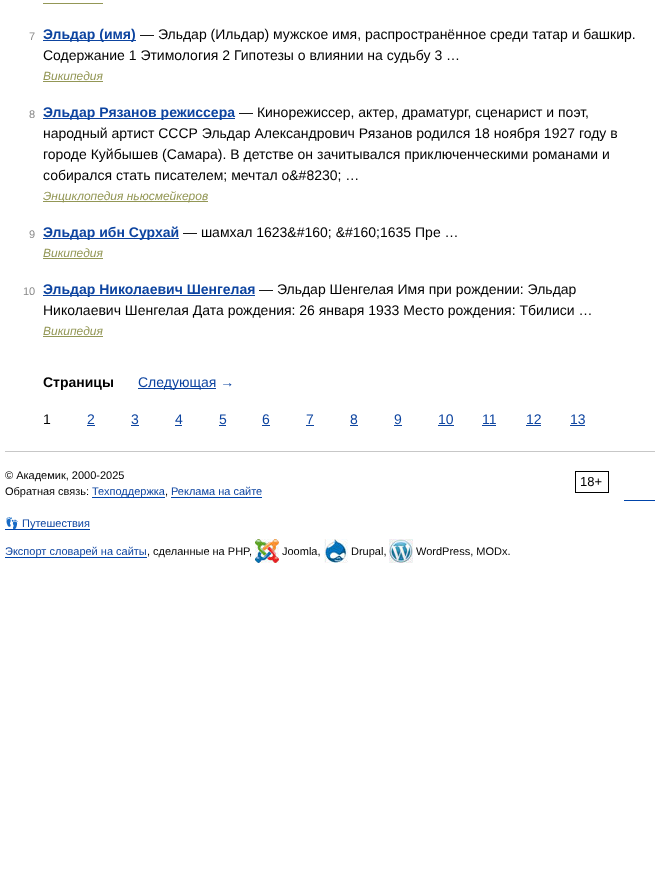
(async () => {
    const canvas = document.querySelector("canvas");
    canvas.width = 660;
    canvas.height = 873;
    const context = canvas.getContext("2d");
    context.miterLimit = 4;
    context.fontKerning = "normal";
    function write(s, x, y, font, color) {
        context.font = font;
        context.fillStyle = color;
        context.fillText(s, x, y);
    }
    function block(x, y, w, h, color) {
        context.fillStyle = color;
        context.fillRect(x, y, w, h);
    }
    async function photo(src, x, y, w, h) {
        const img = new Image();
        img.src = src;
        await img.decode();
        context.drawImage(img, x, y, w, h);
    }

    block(0, 0, 660, 873, "rgb(255, 255, 255)");
    block(43, 3, 60, 1, "rgb(147, 151, 86)");
    write("7", 29, 40, "11px Liberation Sans", "rgb(137, 137, 137)");
    block(43, 40, 93, 1, "rgb(13, 68, 160)");
    write("Эльдар (имя)", 43, 39, "bold 14px Liberation Sans", "rgb(13, 68, 160)");
    write("— Эльдар (Ильдар) мужское имя, распространённое среди татар и башкир.", 140, 39, "14px Liberation Sans", "rgb(0, 0, 0)");
    write("Содержание 1 Этимология 2 Гипотезы о влиянии на судьбу 3 …", 43, 60, "14px Liberation Sans", "rgb(0, 0, 0)");
    write("Википедия", 43, 80, "italic 12px Liberation Sans", "rgb(147, 151, 86)");
    block(43, 81, 60, 1, "rgb(147, 151, 86)");
    write("8", 29, 118, "11px Liberation Sans", "rgb(137, 137, 137)");
    block(43, 118, 192, 1, "rgb(13, 68, 160)");
    write("Эльдар Рязанов режиссера", 43, 117, "bold 14px Liberation Sans", "rgb(13, 68, 160)");
    write("— Кинорежиссер, актер, драматург, сценарист и поэт,", 239, 117, "14px Liberation Sans", "rgb(0, 0, 0)");
    write("народный артист СССР Эльдар Александрович Рязанов родился 18 ноября 1927 году в", 43, 138, "14px Liberation Sans", "rgb(0, 0, 0)");
    write("городе Куйбышев (Самара). В детстве он зачитывался приключенческими романами и", 43, 159, "14px Liberation Sans", "rgb(0, 0, 0)");
    write("собирался стать писателем; мечтал о&#8230; …", 43, 180, "14px Liberation Sans", "rgb(0, 0, 0)");
    block(43, 201, 165, 1, "rgb(147, 151, 86)");
    write("Энциклопедия ньюсмейкеров", 43, 200, "italic 12px Liberation Sans", "rgb(147, 151, 86)");
    write("9", 29, 238, "11px Liberation Sans", "rgb(137, 137, 137)");
    block(43, 238, 136, 1, "rgb(13, 68, 160)");
    write("Эльдар ибн Сурхай", 43, 237, "bold 14px Liberation Sans", "rgb(13, 68, 160)");
    write("— шамхал 1623&#160; &#160;1635 Пре …", 183, 237, "14px Liberation Sans", "rgb(0, 0, 0)");
    write("Википедия", 43, 257, "italic 12px Liberation Sans", "rgb(147, 151, 86)");
    block(43, 258, 60, 1, "rgb(147, 151, 86)");
    write("10", 23, 295, "11px Liberation Sans", "rgb(137, 137, 137)");
    block(43, 295, 212, 1, "rgb(13, 68, 160)");
    write("Эльдар Николаевич Шенгелая", 43, 294, "bold 14px Liberation Sans", "rgb(13, 68, 160)");
    write("— Эльдар Шенгелая Имя при рождении: Эльдар", 259, 294, "14px Liberation Sans", "rgb(0, 0, 0)");
    write("Николаевич Шенгелая Дата рождения: 26 января 1933 Место рождения: Тбилиси …", 43, 315, "14px Liberation Sans", "rgb(0, 0, 0)");
    write("Википедия", 43, 335, "italic 12px Liberation Sans", "rgb(147, 151, 86)");
    block(43, 336, 60, 1, "rgb(147, 151, 86)");
    write("Страницы", 43, 387, "bold 14px Liberation Sans", "rgb(0, 0, 0)");
    block(138, 388, 78, 1, "rgb(13, 68, 160)");
    write("Следующая →", 138, 387, "14px Liberation Sans", "rgb(13, 68, 160)");
    write("1", 43, 424, "14px Liberation Sans", "rgb(0, 0, 0)");
    write("2", 87, 424, "14px Liberation Sans", "rgb(13, 68, 160)");
    block(87, 425, 8, 1, "rgb(13, 68, 160)");
    write("3", 131, 424, "14px Liberation Sans", "rgb(13, 68, 160)");
    block(131, 425, 8, 1, "rgb(13, 68, 160)");
    write("4", 175, 424, "14px Liberation Sans", "rgb(13, 68, 160)");
    block(175, 425, 7, 1, "rgb(13, 68, 160)");
    write("5", 219, 424, "14px Liberation Sans", "rgb(13, 68, 160)");
    block(219, 425, 7, 1, "rgb(13, 68, 160)");
    write("6", 262, 424, "14px Liberation Sans", "rgb(13, 68, 160)");
    block(262, 425, 8, 1, "rgb(13, 68, 160)");
    write("7", 306, 424, "14px Liberation Sans", "rgb(13, 68, 160)");
    block(306, 425, 8, 1, "rgb(13, 68, 160)");
    write("8", 350, 424, "14px Liberation Sans", "rgb(13, 68, 160)");
    block(350, 425, 8, 1, "rgb(13, 68, 160)");
    write("9", 394, 424, "14px Liberation Sans", "rgb(13, 68, 160)");
    block(394, 425, 8, 1, "rgb(13, 68, 160)");
    write("10", 438, 424, "14px Liberation Sans", "rgb(13, 68, 160)");
    block(438, 425, 16, 1, "rgb(13, 68, 160)");
    write("11", 482, 424, "14px Liberation Sans", "rgb(13, 68, 160)");
    block(482, 425, 14, 1, "rgb(13, 68, 160)");
    write("12", 526, 424, "14px Liberation Sans", "rgb(13, 68, 160)");
    block(526, 425, 15, 1, "rgb(13, 68, 160)");
    write("13", 570, 424, "14px Liberation Sans", "rgb(13, 68, 160)");
    block(570, 425, 15, 1, "rgb(13, 68, 160)");
    block(5, 451, 650, 1, "rgb(199, 199, 199)");
    write("© Академик, 2000-2025", 5, 479, "11px Liberation Sans", "rgb(0, 0, 0)");
    context.strokeStyle = "rgb(0, 0, 0)";
    context.strokeRect(575.5, 471.5, 33, 21);
    write("18+", 580, 486, "13px Liberation Sans", "rgb(0, 0, 0)");
    write("Обратная связь:", 5, 495, "11px Liberation Sans", "rgb(0, 0, 0)");
    block(92, 497, 73, 1, "rgb(0, 68, 170)");
    write("Техподдержка", 92, 495, "11px Liberation Sans", "rgb(13, 68, 160)");
    write(",", 165, 495, "11px Liberation Sans", "rgb(0, 0, 0)");
    write("Реклама на сайте", 171, 495, "11px Liberation Sans", "rgb(13, 68, 160)");
    block(171, 497, 91, 1, "rgb(0, 68, 170)");
    block(624, 500, 31, 1, "rgb(0, 68, 170)");
    block(5, 529, 85, 1, "rgb(0, 68, 170)");
    write("👣", 5, 527, "11px Noto Color Emoji", "rgb(13, 68, 160)");
    write("Путешествия", 22, 527, "11px Liberation Sans", "rgb(13, 68, 160)");
    block(5, 557, 142, 1, "rgb(0, 68, 170)");
    write("Экспорт словарей на сайты", 5, 555, "11px Liberation Sans", "rgb(13, 68, 160)");
    write(", сделанные на PHP,", 147, 555, "11px Liberation Sans", "rgb(0, 0, 0)");
    await photo("media/1.png", 255, 539, 24, 24);
    write("Joomla,", 282, 555, "11px Liberation Sans", "rgb(0, 0, 0)");
    await photo("media/2.png", 324, 539, 24, 24);
    write("Drupal,", 351, 555, "11px Liberation Sans", "rgb(0, 0, 0)");
    await photo("media/3.png", 389, 539, 24, 24);
    write("WordPress, MODx.", 416, 555, "11px Liberation Sans", "rgb(0, 0, 0)");
})();
